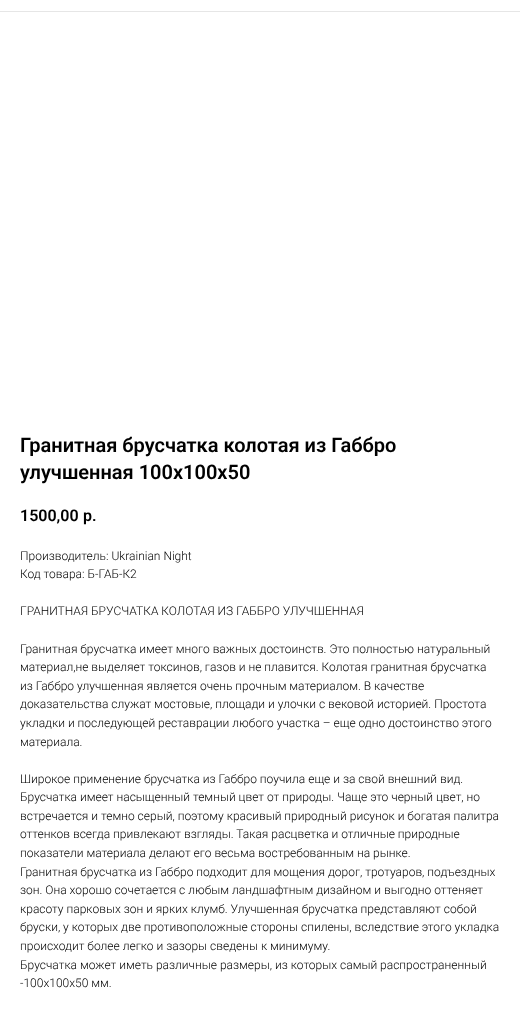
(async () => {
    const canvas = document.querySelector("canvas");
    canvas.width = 520;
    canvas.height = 1020;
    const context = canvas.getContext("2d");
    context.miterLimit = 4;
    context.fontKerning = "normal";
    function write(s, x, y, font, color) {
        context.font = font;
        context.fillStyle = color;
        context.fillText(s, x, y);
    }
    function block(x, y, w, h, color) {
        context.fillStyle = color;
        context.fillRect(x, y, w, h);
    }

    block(0, 0, 520, 1020, "rgb(255, 255, 255)");
    block(0, 11, 520, 1, "rgb(230, 230, 230)");
    write("Гранитная брусчатка колотая из Габбро", 20, 452, "600 20px Roboto", "rgb(0, 0, 0)");
    write("улучшенная 100х100х50", 20, 479, "600 20px Roboto", "rgb(0, 0, 0)");
    write("1500,00", 20, 521, "600 16px Roboto", "rgb(0, 0, 0)");
    write("р.", 83, 521, "600 16px Roboto", "rgb(0, 0, 0)");
    write("Производитель: Ukrainian Night", 20, 560, "300 12px Roboto", "rgb(0, 0, 0)");
    write("Код товара: Б-ГАБ-К2", 20, 578, "300 12px Roboto", "rgb(0, 0, 0)");
    write("ГРАНИТНАЯ БРУСЧАТКА КОЛОТАЯ ИЗ ГАББРО УЛУЧШЕННАЯ", 20, 615, "300 12px Roboto", "rgb(0, 0, 0)");
    write("Гранитная брусчатка имеет много важных достоинств. Это полностью натуральный", 20, 653, "300 12px Roboto", "rgb(0, 0, 0)");
    write("материал,не выделяет токсинов, газов и не плавится. Колотая гранитная брусчатка", 20, 671, "300 12px Roboto", "rgb(0, 0, 0)");
    write("из Габбро улучшенная является очень прочным материалом. В качестве", 20, 690, "300 12px Roboto", "rgb(0, 0, 0)");
    write("доказательства служат мостовые, площади и улочки с вековой историей. Простота", 20, 708, "300 12px Roboto", "rgb(0, 0, 0)");
    write("укладки и последующей реставрации любого участка – еще одно достоинство этого", 20, 727, "300 12px Roboto", "rgb(0, 0, 0)");
    write("материала.", 20, 746, "300 12px Roboto", "rgb(0, 0, 0)");
    write("Широкое применение брусчатка из Габбро поучила еще и за свой внешний вид.", 20, 783, "300 12px Roboto", "rgb(0, 0, 0)");
    write("Брусчатка имеет насыщенный темный цвет от природы. Чаще это черный цвет, но", 20, 801, "300 12px Roboto", "rgb(0, 0, 0)");
    write("встречается и темно серый, поэтому красивый природный рисунок и богатая палитра", 20, 820, "300 12px Roboto", "rgb(0, 0, 0)");
    write("оттенков всегда привлекают взгляды. Такая расцветка и отличные природные", 20, 838, "300 12px Roboto", "rgb(0, 0, 0)");
    write("показатели материала делают его весьма востребованным на рынке.", 20, 857, "300 12px Roboto", "rgb(0, 0, 0)");
    write("Гранитная брусчатка из Габбро подходит для мощения дорог, тротуаров, подъездных", 20, 876, "300 12px Roboto", "rgb(0, 0, 0)");
    write("зон. Она хорошо сочетается с любым ландшафтным дизайном и выгодно оттеняет", 20, 894, "300 12px Roboto", "rgb(0, 0, 0)");
    write("красоту парковых зон и ярких клумб. Улучшенная брусчатка представляют собой", 20, 913, "300 12px Roboto", "rgb(0, 0, 0)");
    write("бруски, у которых две противоположные стороны спилены, вследствие этого укладка", 20, 931, "300 12px Roboto", "rgb(0, 0, 0)");
    write("происходит более легко и зазоры сведены к минимуму.", 20, 950, "300 12px Roboto", "rgb(0, 0, 0)");
    write("Брусчатка может иметь различные размеры, из которых самый распространенный", 20, 969, "300 12px Roboto", "rgb(0, 0, 0)");
    write("-100х100х50 мм.", 20, 987, "300 12px Roboto", "rgb(0, 0, 0)");
})();
